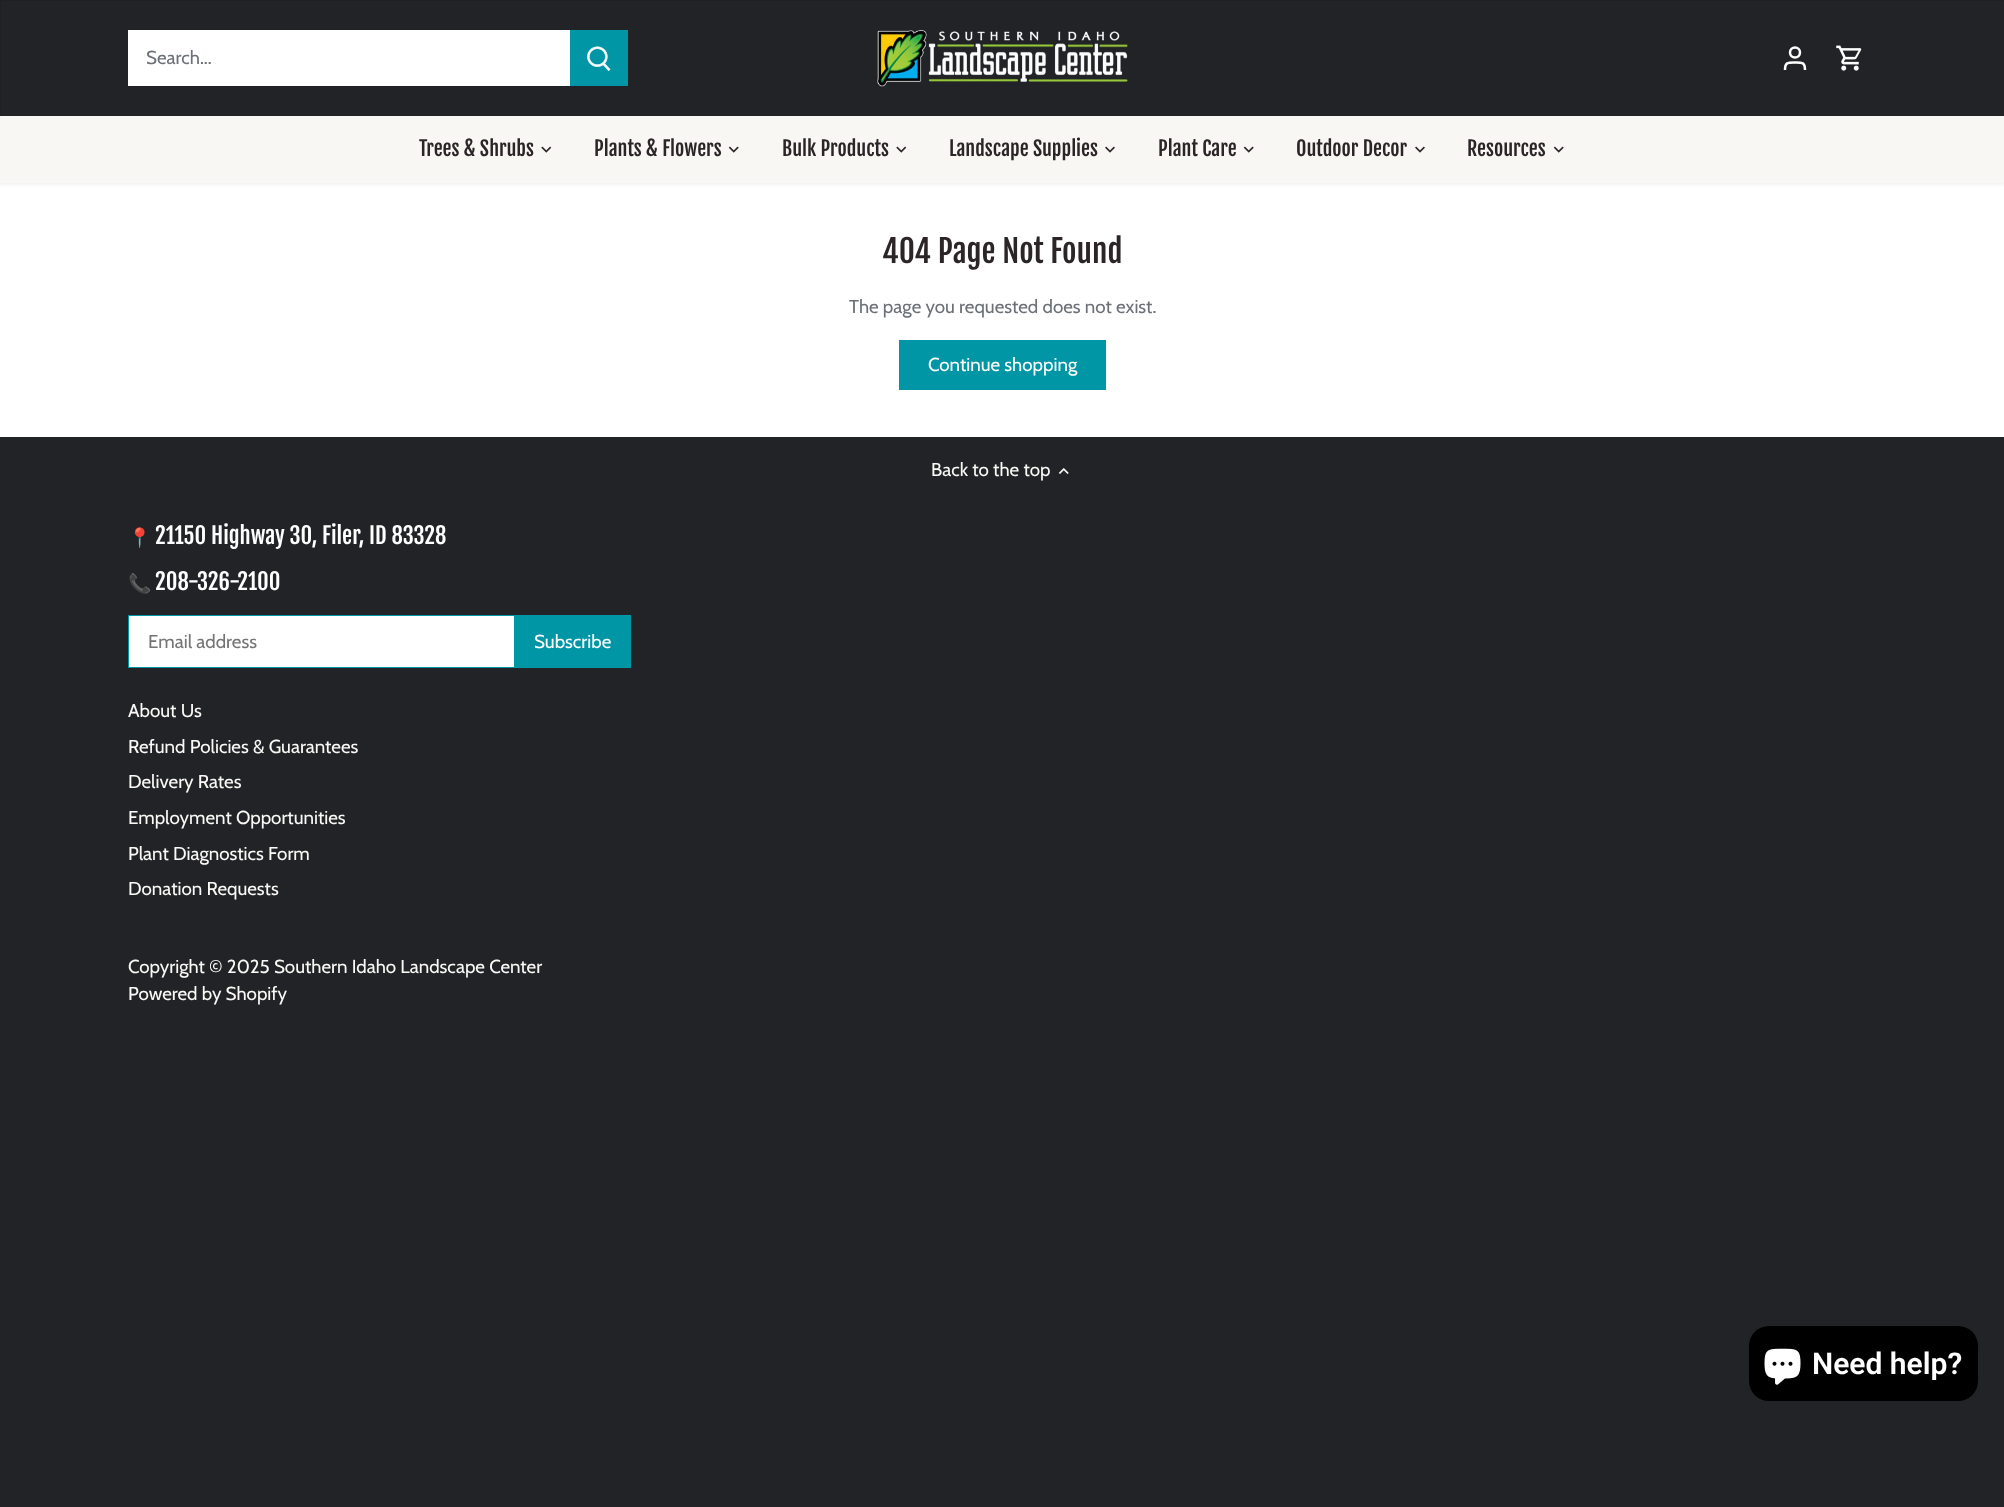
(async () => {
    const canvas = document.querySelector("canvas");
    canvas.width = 2004;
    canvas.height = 1507;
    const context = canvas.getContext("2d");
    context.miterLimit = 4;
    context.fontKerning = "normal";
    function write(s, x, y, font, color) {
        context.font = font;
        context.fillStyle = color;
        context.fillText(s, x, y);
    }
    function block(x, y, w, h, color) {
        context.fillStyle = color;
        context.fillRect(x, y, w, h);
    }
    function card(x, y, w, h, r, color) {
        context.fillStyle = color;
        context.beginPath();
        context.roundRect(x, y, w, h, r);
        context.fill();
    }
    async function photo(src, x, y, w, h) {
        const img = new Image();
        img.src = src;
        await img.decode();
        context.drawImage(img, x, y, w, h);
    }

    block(0, 0, 2004, 1507, "rgb(33, 35, 38)");
    block(0, 183, 2004, 254, "rgb(255, 255, 255)");
    context.fillStyle = "rgba(0, 0, 0, 0.08)";
    context.filter = "blur(2px)";
    context.beginPath();
    context.rect(-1, -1, 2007, 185);
    context.fill();
    context.filter = "none";
    block(0, 116, 2004, 67, "rgb(249, 247, 244)");
    block(1, 1, 2003, 115, "rgb(33, 35, 38)");
    block(128, 30, 442, 56, "rgb(255, 255, 255)");
    write("Search...", 146, 64, "18.75px Cabin", "rgb(107, 113, 119)");
    block(570, 30, 58, 56, "rgb(0, 150, 166)");
    await photo("media/1.png", 587, 46, 24, 25);
    await photo("media/2.png", 877, 30, 251, 57);
    context.beginPath();
    context.arc(1795, 52.5, 5, 0, Math.PI * 2);
    context.strokeStyle = "rgb(255, 255, 255)";
    context.lineWidth = 2.5;
    context.stroke();
    context.beginPath();
    context.moveTo(1805, 70);
    context.bezierCurveTo(1805, 62, 1802, 62.5, 1795, 62.5);
    context.bezierCurveTo(1788, 62.5, 1785, 62, 1785, 70);
    context.stroke();
    await photo("media/3.png", 1836, 45, 26, 26);
    write("Trees & Shrubs", 419, 156, "20px Fjalla One", "rgb(44, 37, 40)");
    await photo("media/4.png", 541, 146, 11, 7);
    write("Plants & Flowers", 594, 156, "20px Fjalla One", "rgb(44, 37, 40)");
    await photo("media/5.png", 728, 146, 11, 7);
    write("Bulk Products", 782, 156, "20px Fjalla One", "rgb(44, 37, 40)");
    await photo("media/4.png", 896, 146, 11, 7);
    write("Landscape Supplies", 949, 156, "20px Fjalla One", "rgb(44, 37, 40)");
    await photo("media/6.png", 1105, 146, 10, 7);
    write("Plant Care", 1158, 156, "20px Fjalla One", "rgb(44, 37, 40)");
    await photo("media/5.png", 1243, 146, 11, 7);
    write("Outdoor Decor", 1296, 156, "20px Fjalla One", "rgb(44, 37, 40)");
    await photo("media/6.png", 1415, 146, 10, 7);
    write("Resources", 1467, 156, "20px Fjalla One", "rgb(44, 37, 40)");
    await photo("media/5.png", 1553, 146, 11, 7);
    write("404 Page Not Found", 882, 263, "31.25px Fjalla One", "rgb(44, 37, 40)");
    write("The page you requested does not exist.", 849, 313, "18.75px Cabin", "rgb(107, 113, 119)");
    block(899, 340, 207, 50, "rgb(0, 150, 166)");
    write("Continue shopping", 928, 371, "18.75px Cabin", "rgb(255, 255, 255)");
    write("Back to the top", 931, 476, "18.75px Cabin", "rgb(250, 249, 246)");
    await photo("media/7.png", 1058, 468, 11, 6);
    write("📍", 128, 544, "18.75px Noto Color Emoji", "rgb(250, 249, 246)");
    write("21150 Highway 30, Filer, ID 83328", 155, 544, "22.5px Fjalla One", "rgb(255, 255, 255)");
    write("📞", 128, 590, "18.75px Noto Color Emoji", "rgb(250, 249, 246)");
    write("208-326-2100", 155, 590, "22.5px Fjalla One", "rgb(255, 255, 255)");
    block(129, 616, 385, 51, "rgb(255, 255, 255)");
    context.strokeStyle = "rgb(0, 150, 166)";
    context.lineWidth = 1;
    context.strokeRect(128.5, 615.5, 501, 52);
    write("Email address", 148, 648, "18.75px Cabin", "rgb(117, 117, 117)");
    block(514, 615, 117, 53, "rgb(0, 150, 166)");
    write("Subscribe", 534, 648, "18.75px Cabin", "rgb(255, 255, 255)");
    write("About Us", 128, 717, "18.75px Cabin", "rgb(250, 249, 246)");
    write("Refund Policies & Guarantees", 128, 753, "18.75px Cabin", "rgb(250, 249, 246)");
    write("Delivery Rates", 128, 788, "18.75px Cabin", "rgb(250, 249, 246)");
    write("Employment Opportunities", 128, 824, "18.75px Cabin", "rgb(250, 249, 246)");
    write("Plant Diagnostics Form", 128, 860, "18.75px Cabin", "rgb(250, 249, 246)");
    write("Donation Requests", 128, 895, "18.75px Cabin", "rgb(250, 249, 246)");
    write("Copyright © 2025 Southern Idaho Landscape Center", 128, 973, "18.75px Cabin", "rgb(250, 249, 246)");
    write("Powered by Shopify", 128, 1000, "18.75px Cabin", "rgb(250, 249, 246)");
    card(1749, 1326, 229, 75, 20, "rgb(0, 0, 0)");
    await photo("media/8.png", 1764, 1348, 37, 37);
    write("Need help?", 1812, 1374, "600 30px Roboto", "rgb(255, 255, 255)");
})();
